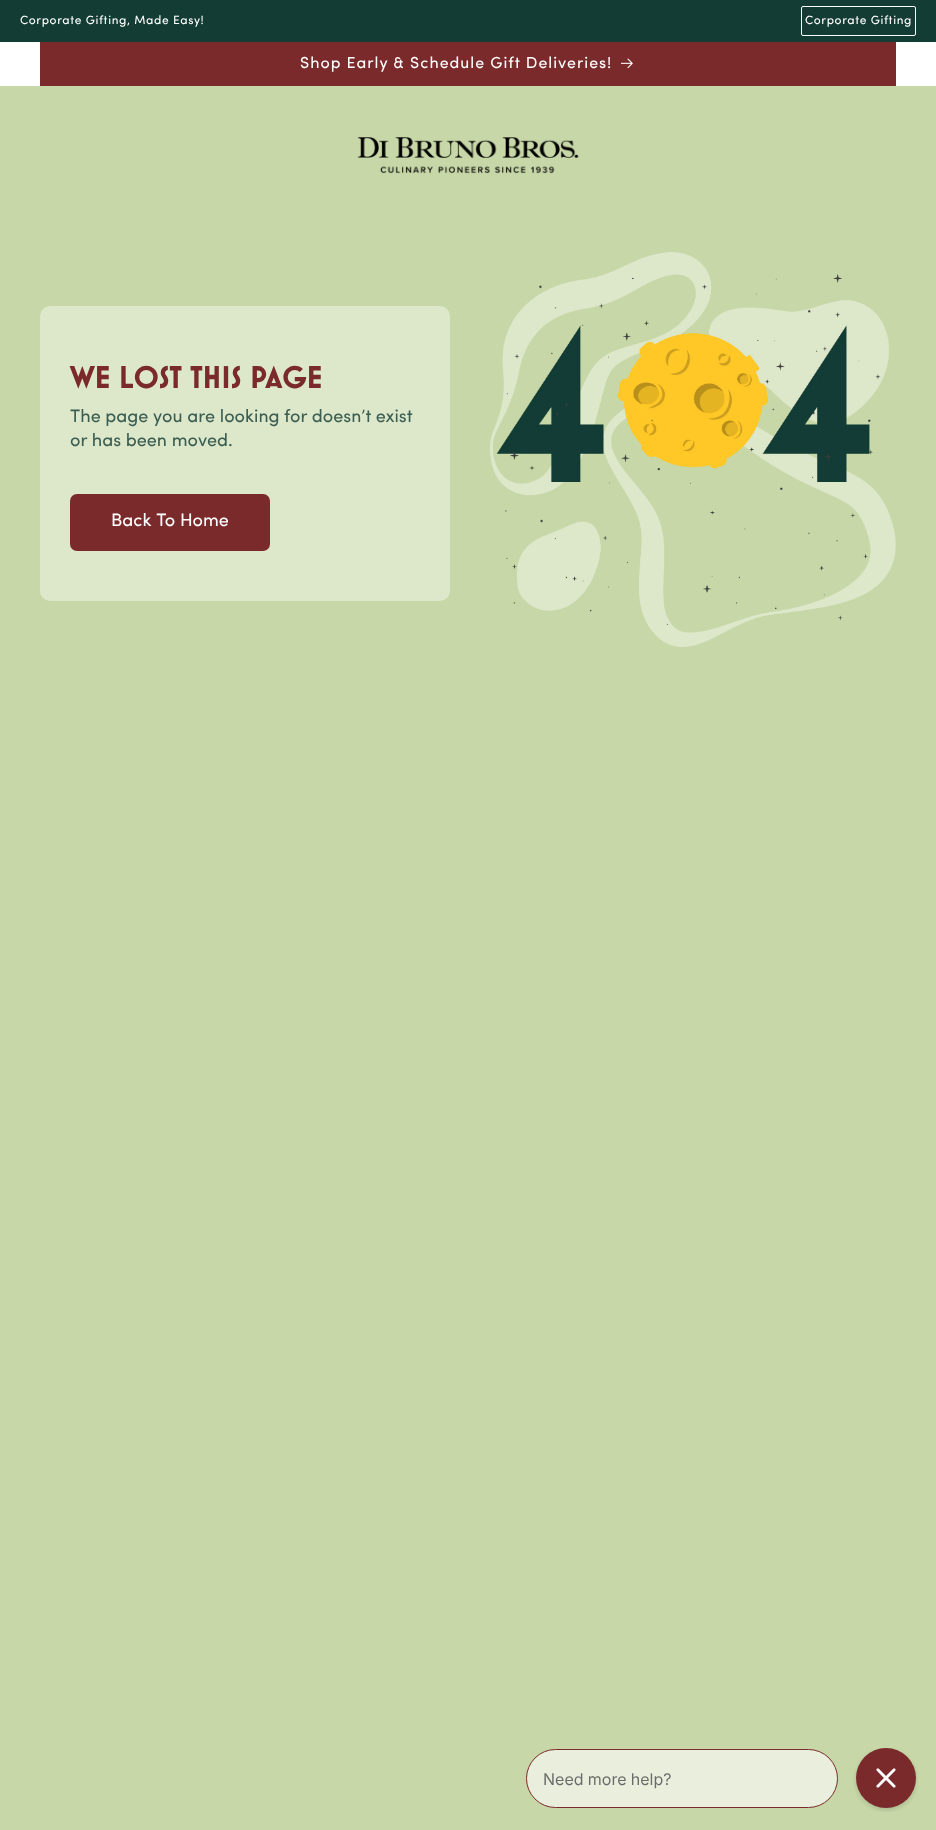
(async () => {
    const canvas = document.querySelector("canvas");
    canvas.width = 936;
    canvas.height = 1830;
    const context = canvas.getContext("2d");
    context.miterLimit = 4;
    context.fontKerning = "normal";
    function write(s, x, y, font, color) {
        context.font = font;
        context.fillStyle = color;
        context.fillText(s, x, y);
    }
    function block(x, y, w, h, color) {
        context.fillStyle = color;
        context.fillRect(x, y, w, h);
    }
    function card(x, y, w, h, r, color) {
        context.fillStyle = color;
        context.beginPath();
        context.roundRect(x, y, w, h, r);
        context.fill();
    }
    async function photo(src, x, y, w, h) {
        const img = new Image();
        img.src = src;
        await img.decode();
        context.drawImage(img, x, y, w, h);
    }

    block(0, 0, 936, 1830, "rgb(255, 255, 255)");
    block(0, 0, 936, 42, "rgb(18, 60, 52)");
    context.letterSpacing = "0.6px";
    write("Corporate Gifting, Made Easy!", 20, 24, "12px Sofia", "rgb(255, 255, 255)");
    context.beginPath();
    context.roundRect(801.5, 6.5, 114, 29, 1.5);
    context.strokeStyle = "rgb(255, 255, 255)";
    context.stroke();
    write("Corporate Gifting", 805, 24, "12px Sofia", "rgb(255, 255, 255)");
    block(40, 42, 856, 44, "rgb(123, 42, 43)");
    context.letterSpacing = "1px";
    write("Shop Early & Schedule Gift Deliveries!", 300, 68, "16px Sofia", "rgb(255, 255, 255)");
    await photo("media/1.png", 621, 58, 12, 11);
    block(0, 86, 936, 1744, "rgb(199, 215, 167)");
    await photo("media/2.png", 357, 137, 222, 37);
    card(40, 306, 410, 295, 10, "rgb(221, 231, 202)");
    context.letterSpacing = "0px";
    write("WE LOST THIS PAGE", 70, 388, "bold 32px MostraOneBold", "rgb(123, 42, 43)");
    write("The page you are looking for doesn’t exist", 70, 422, "18px Sofia", "rgb(59, 94, 82)");
    write("or has been moved.", 70, 446, "18px Sofia", "rgb(59, 94, 82)");
    card(70, 494, 200, 57, 7, "rgb(123, 42, 43)");
    write("Back To Home", 111, 526, "18px Sofia", "rgb(255, 255, 255)");
    await photo("media/3.png", 490, 252, 406, 395);
    await photo("media/4.png", 526, 1748, 392, 64);
})();
